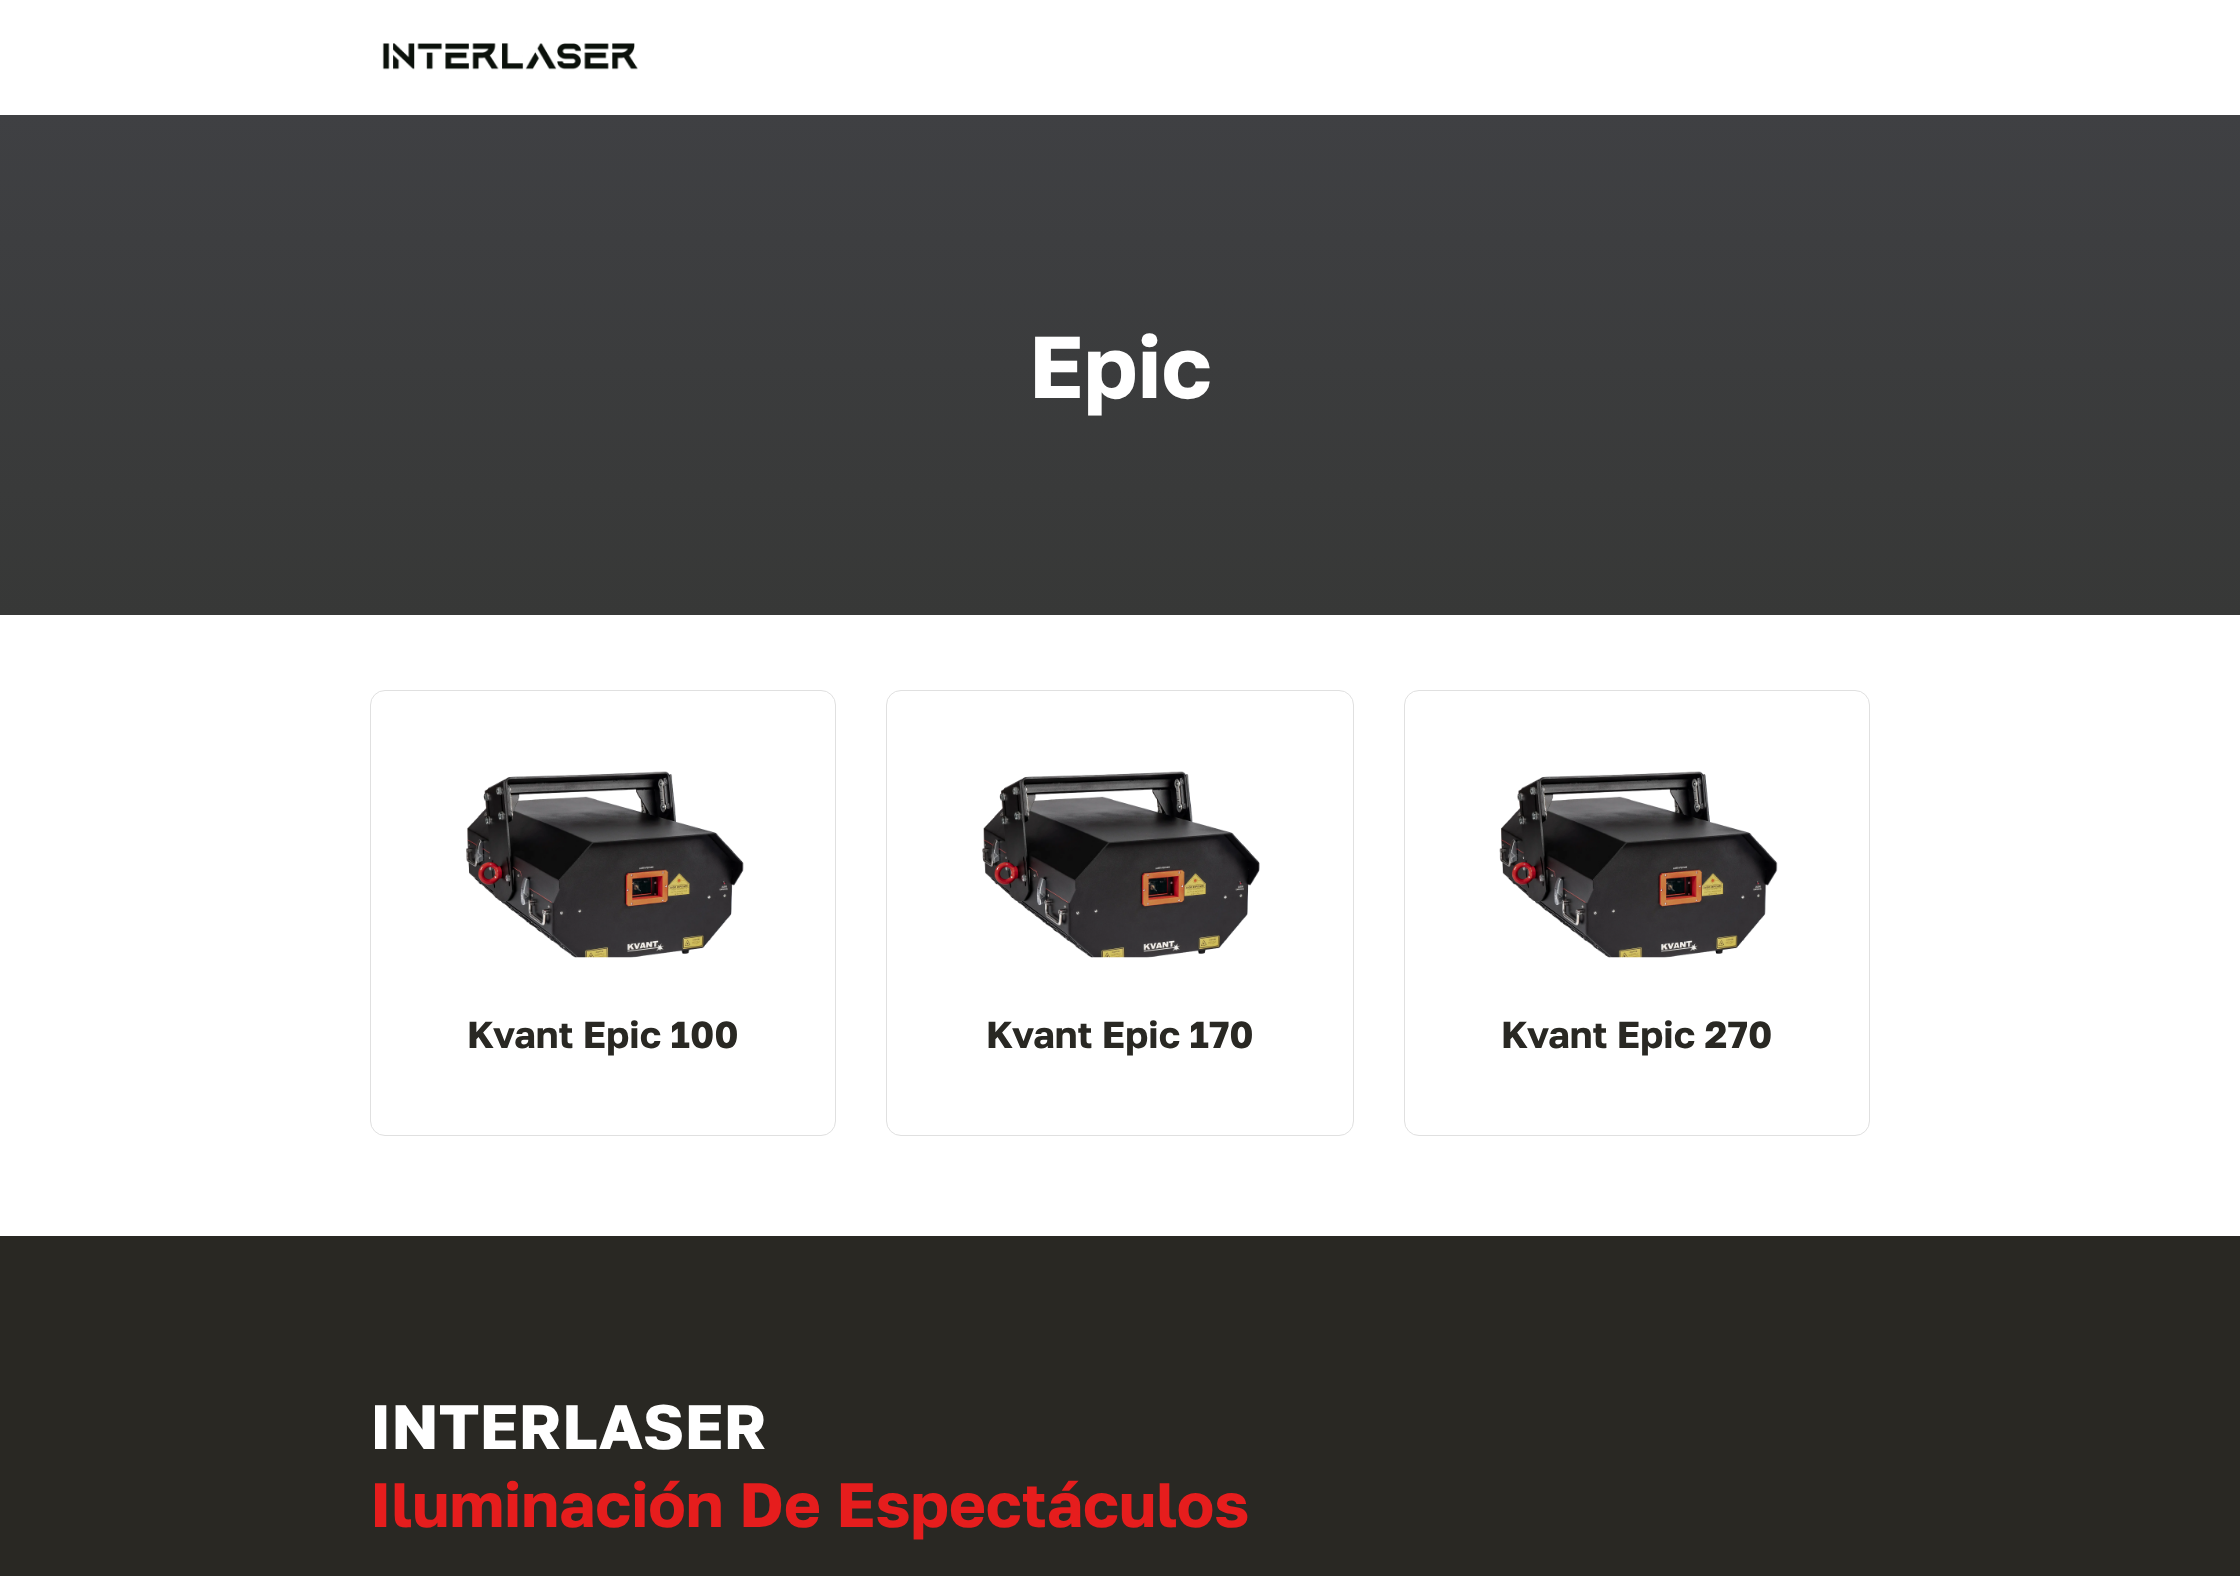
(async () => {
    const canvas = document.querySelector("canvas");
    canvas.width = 2240;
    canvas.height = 1576;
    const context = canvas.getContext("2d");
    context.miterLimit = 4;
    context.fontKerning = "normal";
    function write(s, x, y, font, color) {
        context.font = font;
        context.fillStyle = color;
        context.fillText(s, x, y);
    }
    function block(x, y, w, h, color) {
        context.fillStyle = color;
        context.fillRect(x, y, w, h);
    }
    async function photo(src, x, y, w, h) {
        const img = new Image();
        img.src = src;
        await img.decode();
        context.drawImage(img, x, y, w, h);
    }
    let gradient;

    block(0, 0, 2240, 1576, "rgb(255, 255, 255)");
    await photo("media/1.png", 382, 43, 256, 27);
    gradient = context.createLinearGradient(1120, 115, 1120, 615);
    gradient.addColorStop(0, "rgb(63, 64, 67)");
    gradient.addColorStop(1, "rgb(55, 56, 55)");
    context.fillStyle = gradient;
    context.fillRect(0, 115, 2240, 500);
    write("Epic", 1029, 398, "bold 87.5px Golos Text", "rgb(255, 255, 255)");
    context.beginPath();
    context.roundRect(370.5, 690.5, 465, 445, 14.5);
    context.strokeStyle = "rgb(224, 224, 224)";
    context.stroke();
    await photo("media/2.png", 466, 771, 278, 187);
    write("Kvant Epic 100", 467, 1048, "bold 37.5px Golos Text", "rgb(41, 40, 35)");
    context.beginPath();
    context.roundRect(886.5, 690.5, 467, 445, 14.5);
    context.stroke();
    await photo("media/3.png", 982, 771, 278, 187);
    write("Kvant Epic 170", 986, 1048, "bold 37.5px Golos Text", "rgb(41, 40, 35)");
    context.beginPath();
    context.roundRect(1404.5, 690.5, 465, 445, 14.5);
    context.stroke();
    await photo("media/4.png", 1499, 771, 279, 187);
    write("Kvant Epic 270", 1501, 1048, "bold 37.5px Golos Text", "rgb(41, 40, 35)");
    block(0, 1236, 2240, 340, "rgb(41, 40, 35)");
    write("INTERLASER", 370, 1449, "bold 62.5px Golos Text", "rgb(255, 255, 255)");
    write("Iluminación De Espectáculos", 370, 1527, "bold 62.5px Golos Text", "rgb(230, 29, 29)");
})();
